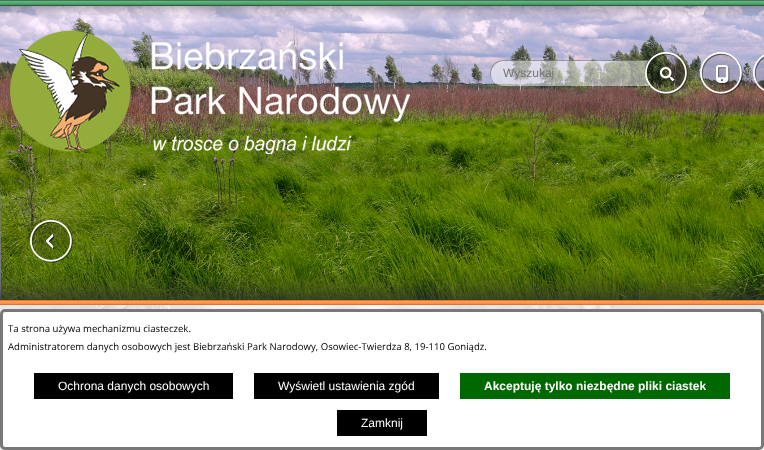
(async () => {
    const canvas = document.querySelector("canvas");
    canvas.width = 764;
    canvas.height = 450;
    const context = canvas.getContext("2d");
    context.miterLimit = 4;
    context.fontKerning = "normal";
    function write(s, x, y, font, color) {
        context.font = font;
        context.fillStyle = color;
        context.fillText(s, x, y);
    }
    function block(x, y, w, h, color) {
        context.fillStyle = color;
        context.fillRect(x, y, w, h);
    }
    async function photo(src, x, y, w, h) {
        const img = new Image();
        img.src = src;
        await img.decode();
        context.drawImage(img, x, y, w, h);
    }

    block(0, 0, 764, 450, "rgb(255, 255, 255)");
    await photo("media/1.png", 0, 6, 764, 294);
    await photo("media/2.png", 0, 0, 764, 19);
    await photo("media/3.png", 0, 266, 764, 34);
    await photo("media/4.png", 10, 30, 400, 124);
    await photo("media/5.png", 490, 60, 160, 26);
    write("Wyszukaj", 503, 77, "12px Liberation Sans", "rgb(117, 117, 117)");
    await photo("media/6.png", 645, 52, 43, 43);
    await photo("media/7.png", 659, 66, 16, 16);
    await photo("media/8.png", 700, 52, 43, 43);
    await photo("media/9.png", 716, 65, 14, 19);
    await photo("media/10.png", 753, 54, 11, 38);
    await photo("media/11.png", 30, 220, 43, 43);
    await photo("media/12.png", 46, 233, 9, 17);
    await photo("media/13.png", 0, 300, 764, 5);
    await photo("media/14.png", 0, 305, 764, 145);
    block(759, 449, 5, 1, "rgba(252, 252, 248, 0.69)");
    block(762, 445, 2, 4, "rgb(255, 255, 255)");
    context.beginPath();
    context.roundRect(1.5, 310.5, 761, 138, 3.5);
    context.fill();
    context.strokeStyle = "rgb(120, 120, 120)";
    context.lineWidth = 3;
    context.stroke();
    write("Ta strona używa mechanizmu ciasteczek.", 8, 332, "9.6px Open Sans", "rgb(0, 0, 0)");
    write("Administratorem danych osobowych jest Biebrzański Park Narodowy, Osowiec-Twierdza 8, 19-110 Goniądz.", 8, 350, "9.6px Open Sans", "rgb(0, 0, 0)");
    block(34, 373, 199, 26, "rgb(0, 0, 0)");
    write("Ochrona danych osobowych", 58, 390, "12px Liberation Sans", "rgb(255, 255, 255)");
    block(254, 373, 185, 26, "rgb(0, 0, 0)");
    write("Wyświetl ustawienia zgód", 278, 390, "12px Liberation Sans", "rgb(255, 255, 255)");
    block(460, 373, 270, 26, "rgb(0, 104, 0)");
    write("Akceptuję tylko niezbędne pliki ciastek", 484, 390, "bold 12px Liberation Sans", "rgb(255, 255, 255)");
    block(337, 410, 90, 26, "rgb(0, 0, 0)");
    write("Zamknij", 361, 427, "12px Liberation Sans", "rgb(255, 255, 255)");
})();
